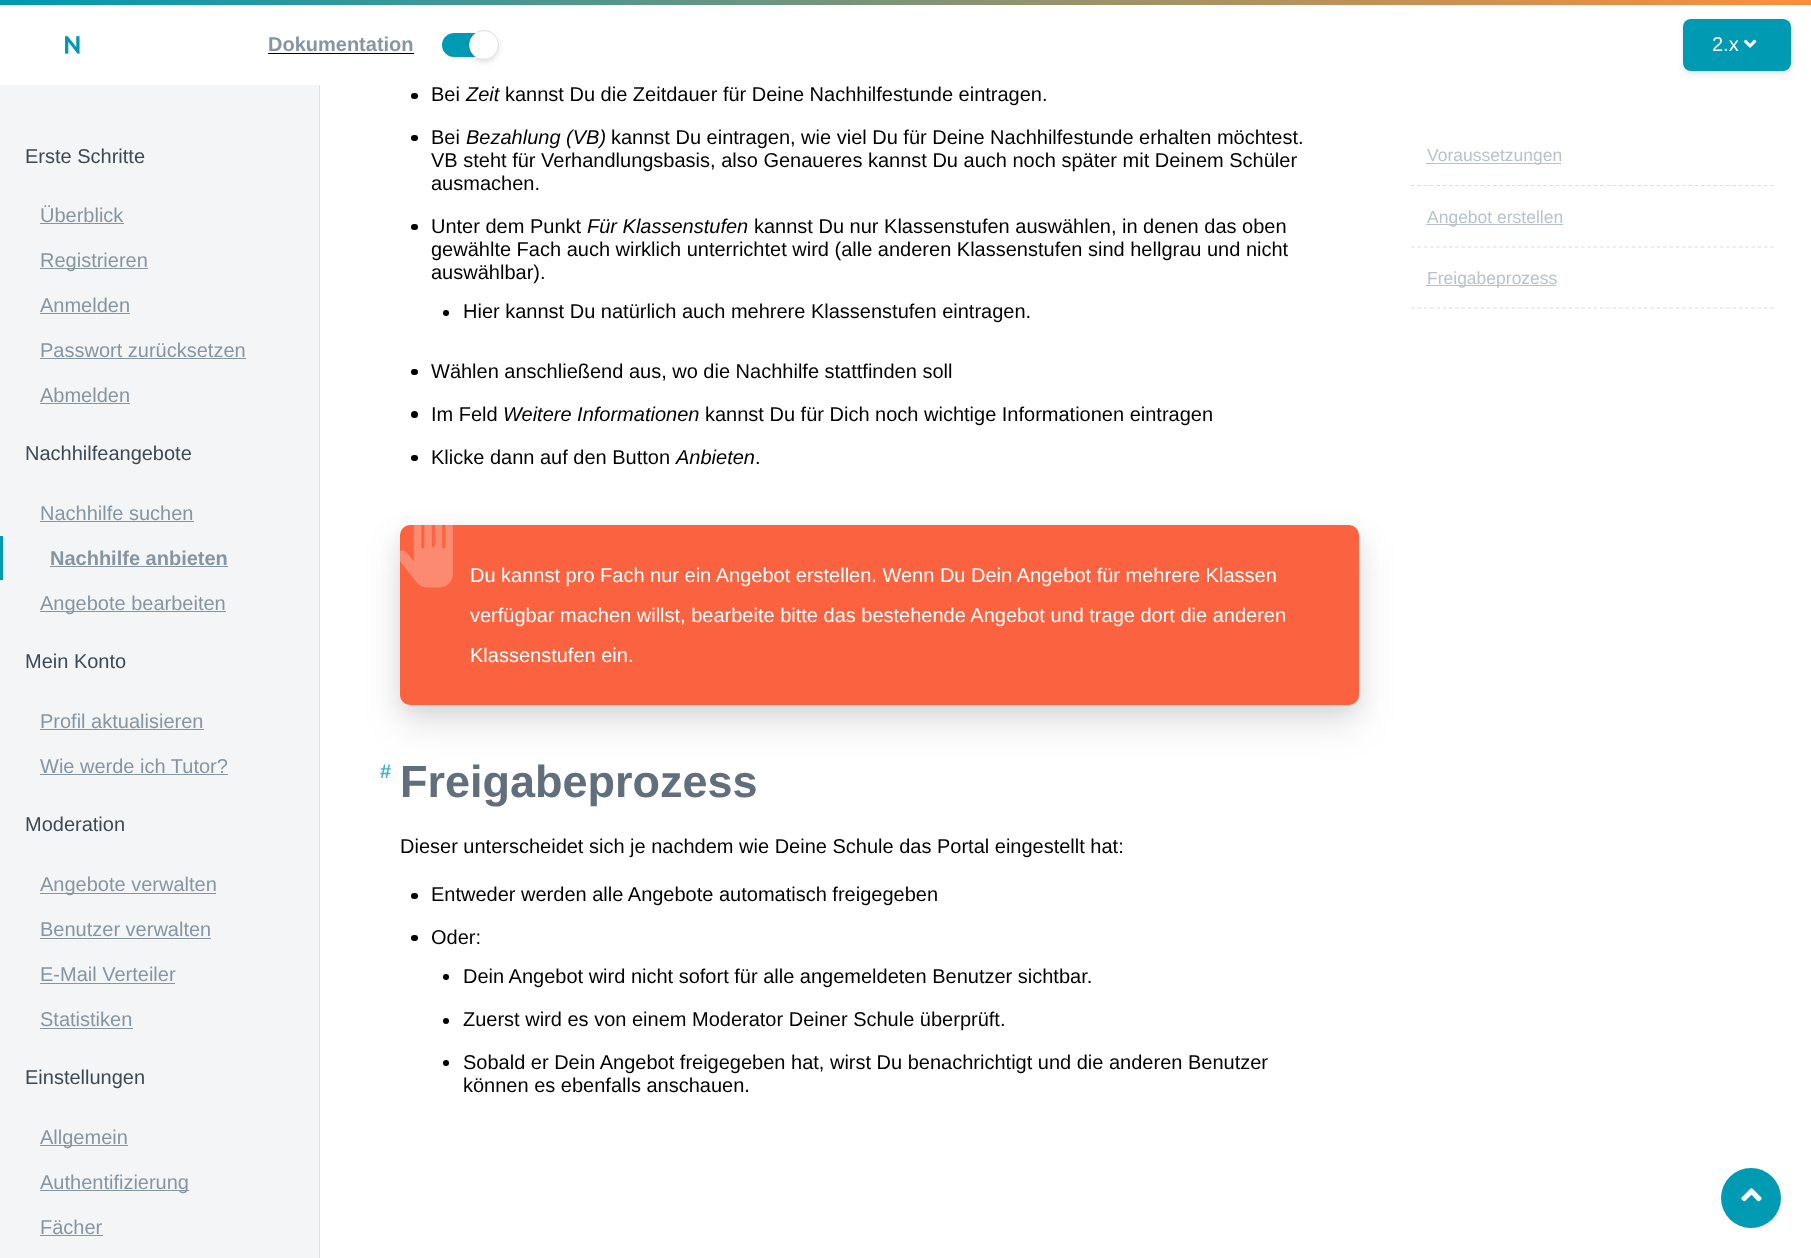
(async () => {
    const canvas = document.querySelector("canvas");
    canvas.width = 1811;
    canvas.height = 1258;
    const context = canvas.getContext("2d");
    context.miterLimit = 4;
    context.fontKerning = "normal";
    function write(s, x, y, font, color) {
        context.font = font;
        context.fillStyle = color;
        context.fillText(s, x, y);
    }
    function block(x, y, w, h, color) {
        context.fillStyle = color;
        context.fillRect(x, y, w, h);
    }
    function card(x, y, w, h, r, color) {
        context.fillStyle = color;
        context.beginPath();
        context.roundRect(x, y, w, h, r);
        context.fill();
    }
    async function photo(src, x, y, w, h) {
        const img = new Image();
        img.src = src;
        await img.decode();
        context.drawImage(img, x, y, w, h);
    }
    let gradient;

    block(0, 0, 1811, 1258, "rgb(255, 255, 255)");
    gradient = context.createLinearGradient(2.3, 50, 1809, -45);
    gradient.addColorStop(0, "rgb(0, 154, 178)");
    gradient.addColorStop(1, "rgb(255, 142, 58)");
    context.fillStyle = gradient;
    context.fillRect(0, 0, 1811, 5);
    block(319, 80, 1, 1178, "rgb(218, 225, 231)");
    block(319, 80, 1, 5, "rgb(255, 255, 255)");
    await photo("media/1.png", 65, 36, 15, 18);
    write("Dokumentation", 268, 51, "bold 20px Liberation Sans", "rgb(135, 149, 161)");
    block(268, 53, 146, 1, "rgb(0, 0, 0)");
    context.fillStyle = "rgb(0, 154, 178)";
    context.beginPath();
    context.roundRect(440.5, 31.5, 57, 27, 13.5);
    context.fill();
    context.strokeStyle = "rgb(255, 255, 255)";
    context.lineWidth = 3;
    context.stroke();
    context.fillStyle = "rgba(0, 0, 0, 0.1)";
    context.filter = "blur(2.5px)";
    context.beginPath();
    context.roundRect(469, 33, 30, 30, 15);
    context.fill();
    context.filter = "none";
    context.fillStyle = "rgb(255, 255, 255)";
    context.beginPath();
    context.arc(484, 45, 14.5, 0, Math.PI * 2);
    context.fill();
    context.strokeStyle = "rgb(218, 225, 231)";
    context.lineWidth = 1;
    context.stroke();
    context.fillStyle = "rgba(0, 0, 0, 0.1)";
    context.filter = "blur(2.5px)";
    context.beginPath();
    context.roundRect(1683, 21, 108, 53, 8);
    context.fill();
    context.filter = "none";
    card(1683, 19, 108, 52, 8, "rgb(0, 154, 178)");
    write("2.x", 1712, 51, "20px Liberation Sans", "rgb(255, 255, 255)");
    await photo("media/2.png", 1743, 39, 14, 9);
    block(0, 85, 319, 1173, "rgb(244, 245, 247)");
    write("Erste Schritte", 25, 163, "20px Liberation Sans", "rgb(61, 72, 82)");
    write("Überblick", 40, 222, "20px Liberation Sans", "rgb(135, 149, 161)");
    block(40, 223, 84, 1, "rgb(135, 149, 161)");
    block(40, 268, 108, 1, "rgb(135, 149, 161)");
    write("Registrieren", 40, 267, "20px Liberation Sans", "rgb(135, 149, 161)");
    write("Anmelden", 40, 312, "20px Liberation Sans", "rgb(135, 149, 161)");
    block(40, 313, 90, 1, "rgb(135, 149, 161)");
    write("Passwort zurücksetzen", 40, 357, "20px Liberation Sans", "rgb(135, 149, 161)");
    block(40, 358, 206, 1, "rgb(135, 149, 161)");
    write("Abmelden", 40, 402, "20px Liberation Sans", "rgb(135, 149, 161)");
    block(40, 403, 90, 1, "rgb(135, 149, 161)");
    write("Nachhilfeangebote", 25, 460, "20px Liberation Sans", "rgb(61, 72, 82)");
    write("Nachhilfe suchen", 40, 520, "20px Liberation Sans", "rgb(135, 149, 161)");
    block(40, 521, 154, 1, "rgb(135, 149, 161)");
    block(0, 536, 3, 44, "rgb(0, 154, 178)");
    write("Nachhilfe anbieten", 50, 565, "bold 20px Liberation Sans", "rgb(135, 149, 161)");
    block(50, 566, 178, 1, "rgb(135, 149, 161)");
    block(40, 611, 186, 1, "rgb(135, 149, 161)");
    write("Angebote bearbeiten", 40, 610, "20px Liberation Sans", "rgb(135, 149, 161)");
    write("Mein Konto", 25, 668, "20px Liberation Sans", "rgb(61, 72, 82)");
    write("Profil aktualisieren", 40, 728, "20px Liberation Sans", "rgb(135, 149, 161)");
    block(40, 729, 164, 1, "rgb(135, 149, 161)");
    write("Wie werde ich Tutor?", 40, 773, "20px Liberation Sans", "rgb(135, 149, 161)");
    block(40, 774, 188, 1, "rgb(135, 149, 161)");
    write("Moderation", 25, 831, "20px Liberation Sans", "rgb(61, 72, 82)");
    block(40, 893, 176, 1, "rgb(135, 149, 161)");
    write("Angebote verwalten", 40, 891, "20px Liberation Sans", "rgb(135, 149, 161)");
    write("Benutzer verwalten", 40, 936, "20px Liberation Sans", "rgb(135, 149, 161)");
    block(40, 938, 171, 1, "rgb(135, 149, 161)");
    write("E-Mail Verteiler", 40, 981, "20px Liberation Sans", "rgb(135, 149, 161)");
    block(40, 983, 135, 1, "rgb(135, 149, 161)");
    write("Statistiken", 40, 1026, "20px Liberation Sans", "rgb(135, 149, 161)");
    block(40, 1028, 93, 1, "rgb(135, 149, 161)");
    write("Einstellungen", 25, 1084, "20px Liberation Sans", "rgb(61, 72, 82)");
    block(40, 1145, 88, 1, "rgb(135, 149, 161)");
    write("Allgemein", 40, 1144, "20px Liberation Sans", "rgb(135, 149, 161)");
    block(40, 1190, 149, 1, "rgb(135, 149, 161)");
    write("Authentifizierung", 40, 1189, "20px Liberation Sans", "rgb(135, 149, 161)");
    write("Fächer", 40, 1234, "20px Liberation Sans", "rgb(135, 149, 161)");
    block(40, 1235, 63, 1, "rgb(135, 149, 161)");
    card(411, 93, 7, 6, 3, "rgb(0, 0, 0)");
    write("Bei", 431, 101, "20px Liberation Sans", "rgb(0, 0, 0)");
    write("Zeit", 466, 101, "italic 20px Liberation Sans", "rgb(0, 0, 0)");
    write("kannst Du die Zeitdauer für Deine Nachhilfestunde eintragen.", 505, 101, "20px Liberation Sans", "rgb(0, 0, 0)");
    card(411, 135, 7, 6, 3, "rgb(0, 0, 0)");
    write("Bei", 431, 144, "20px Liberation Sans", "rgb(0, 0, 0)");
    write("Bezahlung (VB)", 466, 144, "italic 20px Liberation Sans", "rgb(0, 0, 0)");
    write("kannst Du eintragen, wie viel Du für Deine Nachhilfestunde erhalten möchtest.", 611, 144, "20px Liberation Sans", "rgb(0, 0, 0)");
    write("VB steht für Verhandlungsbasis, also Genaueres kannst Du auch noch später mit Deinem Schüler", 431, 167, "20px Liberation Sans", "rgb(0, 0, 0)");
    write("ausmachen.", 431, 190, "20px Liberation Sans", "rgb(0, 0, 0)");
    card(411, 224, 7, 6, 3, "rgb(0, 0, 0)");
    write("Unter dem Punkt", 431, 233, "20px Liberation Sans", "rgb(0, 0, 0)");
    write("Für Klassenstufen", 587, 233, "italic 20px Liberation Sans", "rgb(0, 0, 0)");
    write("kannst Du nur Klassenstufen auswählen, in denen das oben", 754, 233, "20px Liberation Sans", "rgb(0, 0, 0)");
    write("gewählte Fach auch wirklich unterrichtet wird (alle anderen Klassenstufen sind hellgrau und nicht", 431, 256, "20px Liberation Sans", "rgb(0, 0, 0)");
    write("auswählbar).", 431, 279, "20px Liberation Sans", "rgb(0, 0, 0)");
    context.beginPath();
    context.arc(446, 313, 3, 0, Math.PI * 2);
    context.fill();
    write("Hier kannst Du natürlich auch mehrere Klassenstufen eintragen.", 463, 318, "20px Liberation Sans", "rgb(0, 0, 0)");
    card(411, 369, 7, 6, 3, "rgb(0, 0, 0)");
    write("Wählen anschließend aus, wo die Nachhilfe stattfinden soll", 431, 378, "20px Liberation Sans", "rgb(0, 0, 0)");
    context.beginPath();
    context.arc(414.5, 414.5, 3.5, 0, Math.PI * 2);
    context.fill();
    write("Im Feld", 431, 421, "20px Liberation Sans", "rgb(0, 0, 0)");
    write("Weitere Informationen", 503, 421, "italic 20px Liberation Sans", "rgb(0, 0, 0)");
    write("kannst Du für Dich noch wichtige Informationen eintragen", 705, 421, "20px Liberation Sans", "rgb(0, 0, 0)");
    card(411, 455, 7, 6, 3, "rgb(0, 0, 0)");
    write("Klicke dann auf den Button", 431, 464, "20px Liberation Sans", "rgb(0, 0, 0)");
    write("Anbieten", 676, 464, "italic 20px Liberation Sans", "rgb(0, 0, 0)");
    write(".", 755, 464, "20px Liberation Sans", "rgb(0, 0, 0)");
    context.beginPath();
    context.moveTo(1411, 185.5);
    context.lineTo(1774, 185.5);
    context.lineWidth = 1.2;
    context.setLineDash([3.75, 2.55]);
    context.stroke();
    block(1426, 163, 135, 1, "rgb(184, 194, 204)");
    write("Voraussetzungen", 1427, 161, "17.5px Liberation Sans", "rgb(184, 194, 204)");
    context.beginPath();
    context.moveTo(1411, 247);
    context.lineTo(1774, 247);
    context.stroke();
    block(1426, 224, 137, 1, "rgb(184, 194, 204)");
    write("Angebot erstellen", 1427, 223, "17.5px Liberation Sans", "rgb(184, 194, 204)");
    context.beginPath();
    context.moveTo(1411, 308);
    context.lineTo(1774, 308);
    context.stroke();
    block(1426, 285, 130, 1, "rgb(184, 194, 204)");
    write("Freigabeprozess", 1427, 284, "17.5px Liberation Sans", "rgb(184, 194, 204)");
    context.fillStyle = "rgba(0, 0, 0, 0.08)";
    context.filter = "blur(9.5px)";
    context.beginPath();
    context.roundRect(400, 531, 959, 180, 10);
    context.fill();
    context.filter = "none";
    context.fillStyle = "rgba(0, 0, 0, 0.11)";
    context.filter = "blur(19px)";
    context.beginPath();
    context.roundRect(400, 544, 959, 180, 10);
    context.fill();
    context.filter = "none";
    card(400, 525, 959, 180, 10, "rgb(251, 99, 64)");
    await photo("media/3.png", 400, 525, 53, 63);
    write("Du kannst pro Fach nur ein Angebot erstellen. Wenn Du Dein Angebot für mehrere Klassen", 470, 582, "20px Liberation Sans", "rgb(255, 255, 255)");
    write("verfügbar machen willst, bearbeite bitte das bestehende Angebot und trage dort die anderen", 470, 622, "20px Liberation Sans", "rgb(255, 255, 255)");
    write("Klassenstufen ein.", 470, 662, "20px Liberation Sans", "rgb(255, 255, 255)");
    write("#", 380, 778, "bold 20px Liberation Sans", "rgb(64, 179, 197)");
    write("Freigabeprozess", 400, 797, "bold 45px Liberation Sans", "rgb(96, 111, 123)");
    write("Dieser unterscheidet sich je nachdem wie Deine Schule das Portal eingestellt hat:", 400, 853, "20px Liberation Sans", "rgb(0, 0, 0)");
    card(411, 893, 7, 6, 3, "rgb(0, 0, 0)");
    write("Entweder werden alle Angebote automatisch freigegeben", 431, 901, "20px Liberation Sans", "rgb(0, 0, 0)");
    card(411, 935, 7, 6, 3, "rgb(0, 0, 0)");
    write("Oder:", 431, 944, "20px Liberation Sans", "rgb(0, 0, 0)");
    context.beginPath();
    context.arc(446, 977, 3, 0, Math.PI * 2);
    context.fill();
    write("Dein Angebot wird nicht sofort für alle angemeldeten Benutzer sichtbar.", 463, 983, "20px Liberation Sans", "rgb(0, 0, 0)");
    context.beginPath();
    context.arc(446, 1021, 3, 0, Math.PI * 2);
    context.fill();
    write("Zuerst wird es von einem Moderator Deiner Schule überprüft.", 463, 1026, "20px Liberation Sans", "rgb(0, 0, 0)");
    context.beginPath();
    context.arc(446, 1063, 3, 0, Math.PI * 2);
    context.fill();
    write("Sobald er Dein Angebot freigegeben hat, wirst Du benachrichtigt und die anderen Benutzer", 463, 1069, "20px Liberation Sans", "rgb(0, 0, 0)");
    write("können es ebenfalls anschauen.", 463, 1092, "20px Liberation Sans", "rgb(0, 0, 0)");
    context.fillStyle = "rgb(0, 154, 178)";
    context.beginPath();
    context.arc(1751, 1198, 30, 0, Math.PI * 2);
    context.fill();
    await photo("media/4.png", 1741, 1188, 21, 14);
})();
